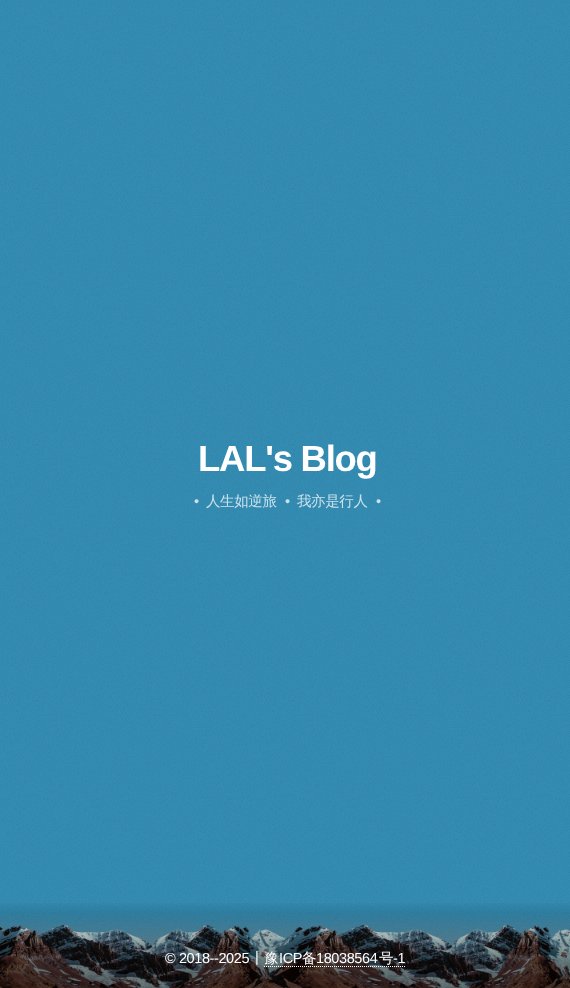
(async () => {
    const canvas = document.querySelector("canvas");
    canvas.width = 570;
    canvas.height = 988;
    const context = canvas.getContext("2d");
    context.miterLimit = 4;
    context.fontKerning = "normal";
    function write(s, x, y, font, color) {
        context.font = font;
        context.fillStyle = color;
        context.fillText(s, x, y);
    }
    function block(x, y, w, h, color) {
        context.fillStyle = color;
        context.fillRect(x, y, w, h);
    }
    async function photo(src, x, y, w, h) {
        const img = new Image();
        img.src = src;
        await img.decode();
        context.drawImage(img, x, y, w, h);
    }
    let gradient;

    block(0, 0, 570, 988, "rgb(52, 140, 178)");
    await photo("media/2.png", 0, 914, 570, 74);
    await photo("media/1.png", 0, 0, 570, 988);
    context.letterSpacing = "-1.25px";
    write("LAL's Blog", 198, 471, "bold 36.5px Liberation Sans", "rgb(255, 255, 255)");
    context.letterSpacing = "-0.4px";
    write("•", 194, 506, "14.5px Liberation Sans", "rgb(204, 226, 235)");
    write("人生如逆旅", 206, 506, "500 14.5px WenQuanYi Zen Hei", "rgb(204, 226, 235)");
    write("•", 285, 506, "14.5px Liberation Sans", "rgb(204, 226, 235)");
    write("我亦是行人", 297, 506, "500 14.5px WenQuanYi Zen Hei", "rgb(204, 226, 235)");
    write("•", 376, 506, "14.5px Liberation Sans", "rgb(204, 226, 235)");
    gradient = context.createLinearGradient(285, 900, 285, 988);
    gradient.addColorStop(0, "rgba(0, 0, 0, 0)");
    gradient.addColorStop(0.75, "rgba(0, 0, 0, 0.5)");
    context.fillStyle = gradient;
    context.fillRect(0, 903, 570, 85);
    write("© 2018--2025", 165, 963, "14.5px Liberation Sans", "rgb(255, 255, 255)");
    write("丨豫", 250, 963, "500 14.5px WenQuanYi Zen Hei", "rgb(255, 255, 255)");
    write("ICP", 279, 963, "14.5px Liberation Sans", "rgb(255, 255, 255)");
    context.beginPath();
    context.moveTo(264, 966.5);
    context.lineTo(405, 966.5);
    context.strokeStyle = "rgb(255, 255, 255)";
    context.setLineDash([1, 1]);
    context.stroke();
    write("备", 302, 963, "500 14.5px WenQuanYi Zen Hei", "rgb(255, 255, 255)");
    write("18038564", 316, 963, "14.5px Liberation Sans", "rgb(255, 255, 255)");
    write("号", 379, 963, "500 14.5px WenQuanYi Zen Hei", "rgb(255, 255, 255)");
    write("-1", 393, 963, "14.5px Liberation Sans", "rgb(255, 255, 255)");
})();
